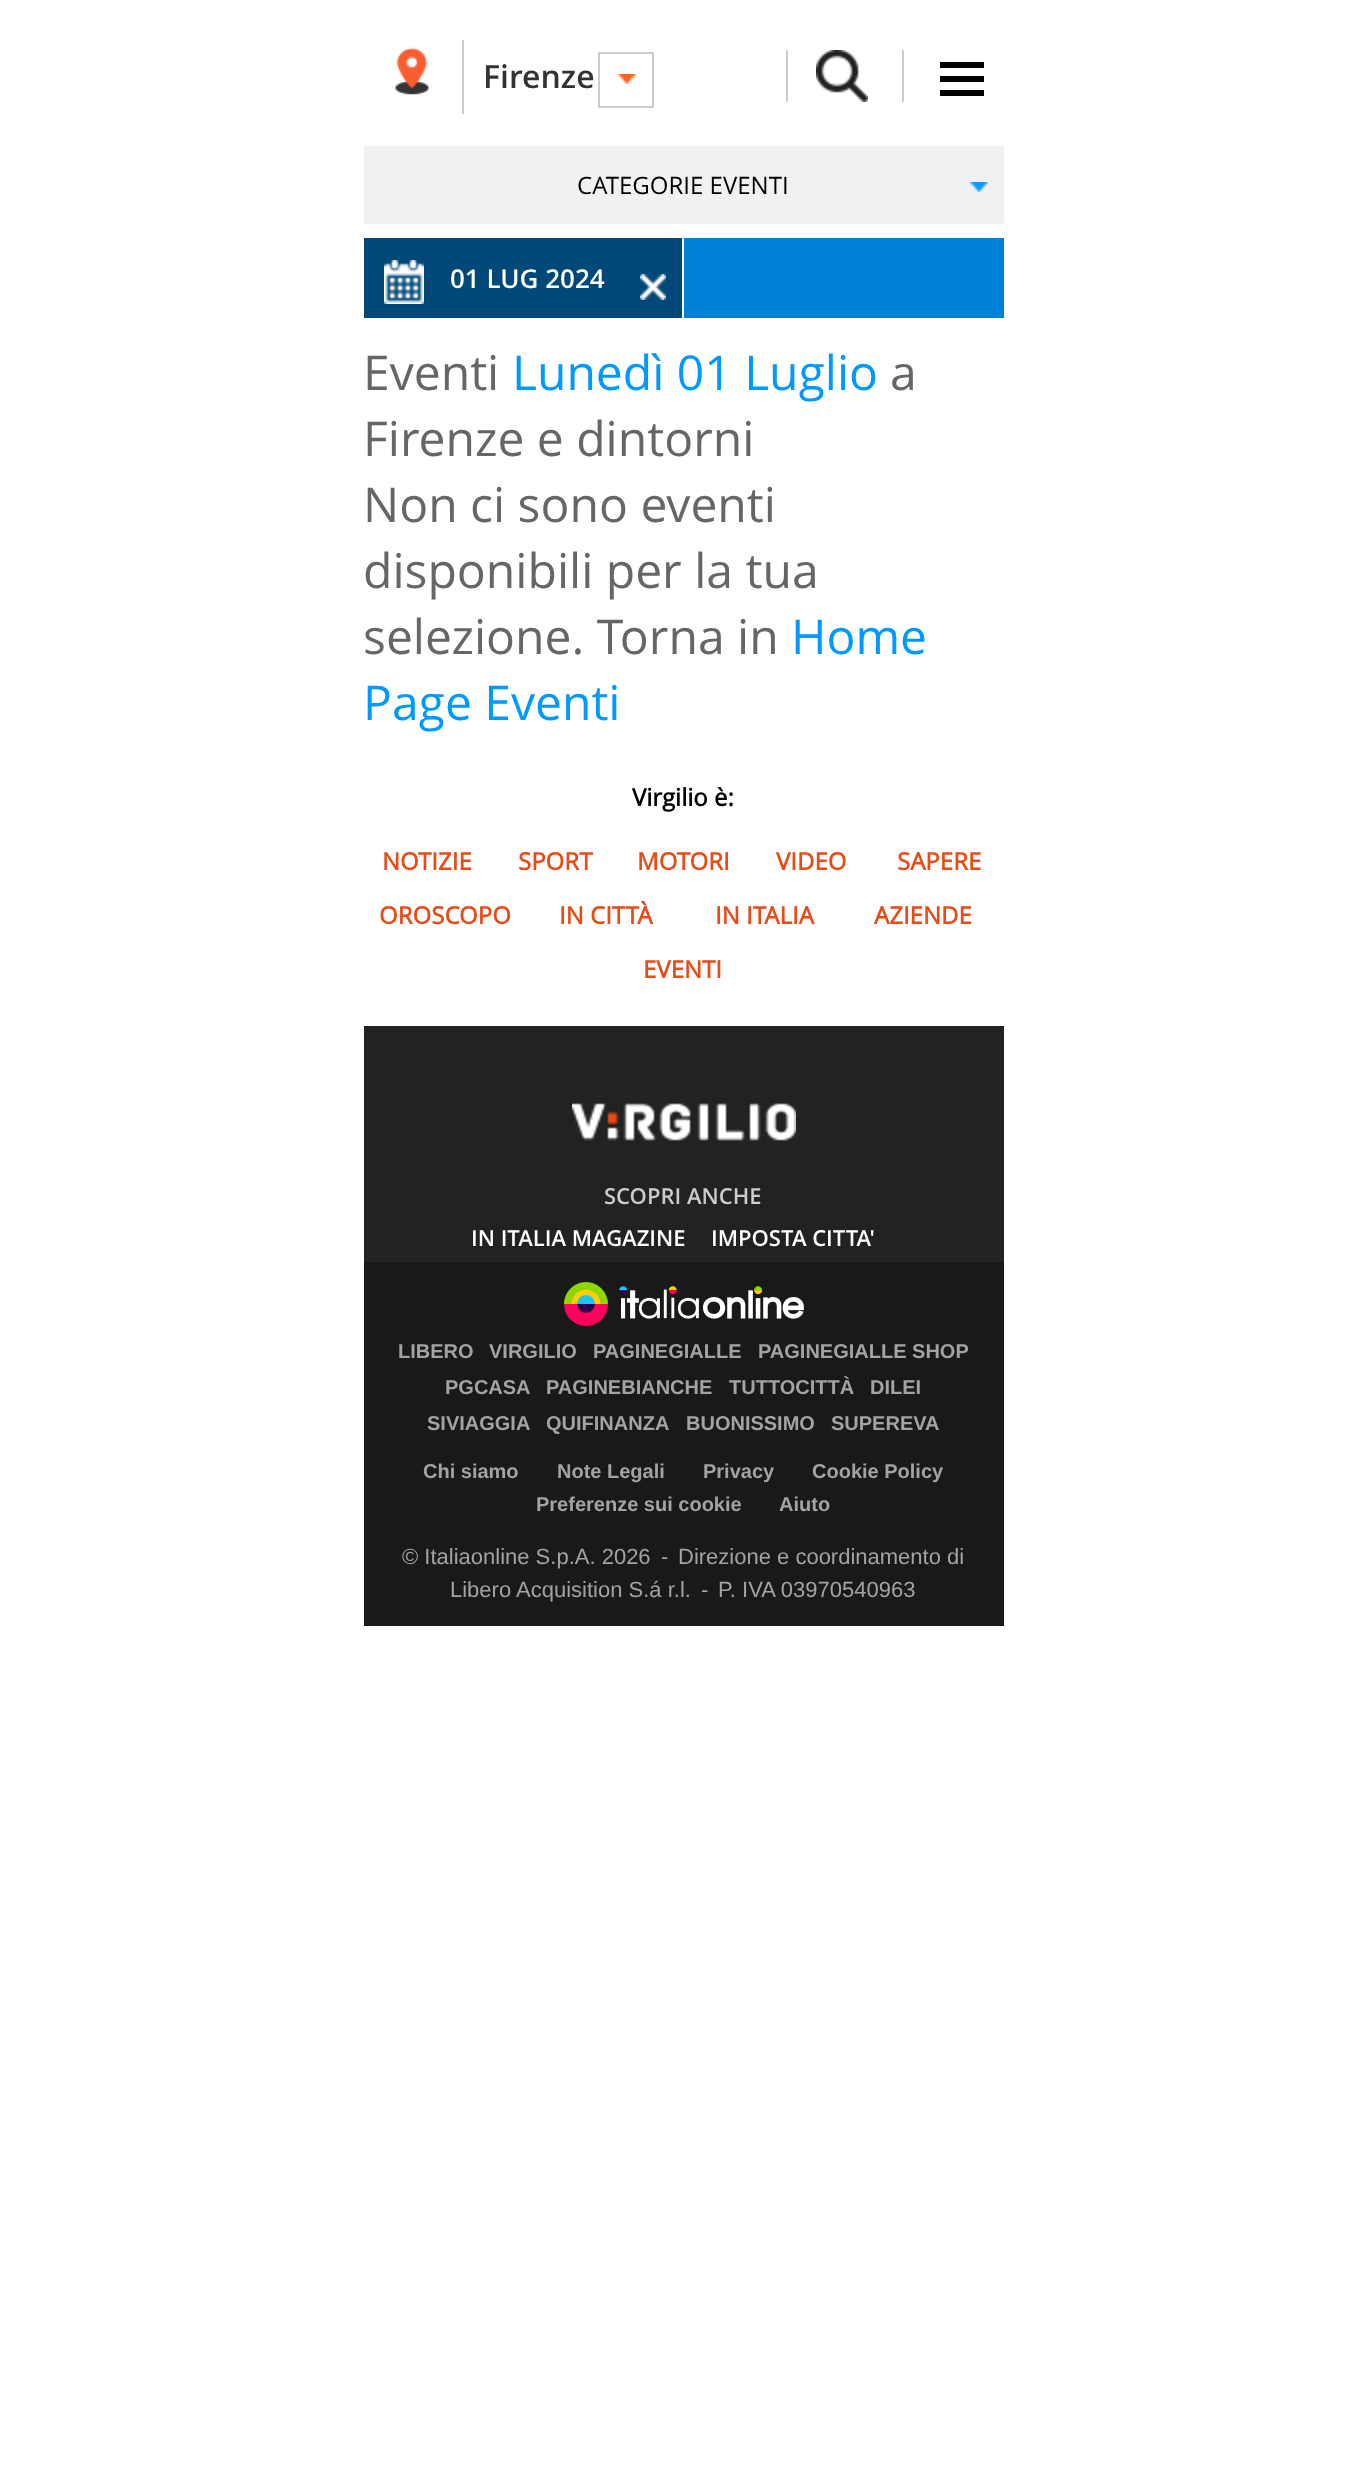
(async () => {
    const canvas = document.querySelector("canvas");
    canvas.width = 1365;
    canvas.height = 2491;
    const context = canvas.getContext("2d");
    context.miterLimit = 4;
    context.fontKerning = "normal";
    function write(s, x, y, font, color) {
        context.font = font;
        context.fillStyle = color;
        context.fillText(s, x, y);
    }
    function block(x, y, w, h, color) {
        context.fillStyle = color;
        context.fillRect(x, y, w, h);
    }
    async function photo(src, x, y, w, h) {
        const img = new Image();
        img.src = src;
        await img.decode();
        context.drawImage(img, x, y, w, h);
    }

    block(0, 0, 1365, 2491, "rgb(255, 255, 255)");
    block(462, 40, 2, 74, "rgb(204, 204, 204)");
    await photo("media/1.png", 395, 47, 34, 48);
    write("Firenze", 483, 88, "600 32px Open Sans", "rgb(51, 51, 51)");
    context.strokeStyle = "rgb(204, 204, 204)";
    context.lineWidth = 2;
    context.strokeRect(599, 53, 54, 54);
    await photo("media/2.png", 618, 74, 18, 10);
    await photo("media/3.png", 816, 50, 52, 52);
    block(786, 50, 2, 52, "rgb(204, 204, 204)");
    block(902, 50, 2, 52, "rgb(204, 204, 204)");
    block(940, 62, 44, 6, "rgb(0, 0, 0)");
    block(940, 76, 44, 6, "rgb(0, 0, 0)");
    block(940, 90, 44, 6, "rgb(0, 0, 0)");
    block(364, 146, 640, 78, "rgb(240, 241, 243)");
    write("CATEGORIE EVENTI", 577, 194, "24px Open Sans", "rgb(0, 0, 0)");
    await photo("media/4.png", 970, 182, 18, 10);
    block(684, 238, 320, 80, "rgb(0, 129, 215)");
    block(364, 238, 318, 80, "rgb(0, 72, 120)");
    await photo("media/5.png", 384, 260, 40, 44);
    write("01 LUG 2024", 450, 288, "600 26px Open Sans", "rgb(255, 255, 255)");
    await photo("media/6.png", 640, 274, 26, 26);
    write("Eventi", 363, 390, "48px Open Sans", "rgb(102, 102, 102)");
    write("Lunedì 01 Luglio", 512, 390, "48px Open Sans", "rgb(0, 153, 255)");
    write("a", 890, 390, "48px Open Sans", "rgb(102, 102, 102)");
    write("Firenze e dintorni", 363, 456, "48px Open Sans", "rgb(102, 102, 102)");
    write("Non ci sono eventi", 363, 522, "48px Open Sans", "rgb(102, 102, 102)");
    write("disponibili per la tua", 363, 588, "48px Open Sans", "rgb(102, 102, 102)");
    write("selezione. Torna in", 363, 654, "48px Open Sans", "rgb(102, 102, 102)");
    write("Home", 791, 654, "48px Open Sans", "rgb(0, 153, 255)");
    write("Page Eventi", 363, 720, "48px Open Sans", "rgb(0, 153, 255)");
    write("Virgilio è:", 632, 806, "bold 24px Open Sans", "rgb(0, 0, 0)");
    write("NOTIZIE", 382, 870, "bold 24px Open Sans", "rgb(231, 75, 24)");
    write("SPORT", 518, 870, "bold 24px Open Sans", "rgb(231, 75, 24)");
    write("MOTORI", 637, 870, "bold 24px Open Sans", "rgb(231, 75, 24)");
    write("VIDEO", 776, 870, "bold 24px Open Sans", "rgb(231, 75, 24)");
    write("SAPERE", 897, 870, "bold 24px Open Sans", "rgb(231, 75, 24)");
    write("OROSCOPO", 379, 924, "bold 24px Open Sans", "rgb(231, 75, 24)");
    write("IN CITTÀ", 559, 924, "bold 24px Open Sans", "rgb(231, 75, 24)");
    write("IN ITALIA", 715, 924, "bold 24px Open Sans", "rgb(231, 75, 24)");
    write("AZIENDE", 874, 924, "bold 24px Open Sans", "rgb(231, 75, 24)");
    write("EVENTI", 643, 978, "bold 24px Open Sans", "rgb(231, 75, 24)");
    block(364, 1026, 640, 236, "rgb(34, 34, 34)");
    await photo("media/7.png", 572, 1103, 224, 38);
    write("SCOPRI ANCHE", 604, 1204, "600 22px Open Sans", "rgb(204, 204, 204)");
    write("IN ITALIA MAGAZINE", 471, 1246, "600 22px Open Sans", "rgb(255, 255, 255)");
    write("IMPOSTA CITTA'", 711, 1246, "600 22px Open Sans", "rgb(255, 255, 255)");
    block(364, 1262, 640, 364, "rgb(25, 25, 25)");
    await photo("media/8.png", 564, 1282, 240, 44);
    write("LIBERO", 398, 1358, "bold 20px Liberation Sans", "rgb(163, 163, 163)");
    write("VIRGILIO", 489, 1358, "bold 20px Liberation Sans", "rgb(163, 163, 163)");
    write("PAGINEGIALLE", 593, 1358, "bold 20px Liberation Sans", "rgb(163, 163, 163)");
    write("PAGINEGIALLE SHOP", 758, 1358, "bold 20px Liberation Sans", "rgb(163, 163, 163)");
    write("PGCASA", 445, 1394, "bold 20px Liberation Sans", "rgb(163, 163, 163)");
    write("PAGINEBIANCHE", 546, 1394, "bold 20px Liberation Sans", "rgb(163, 163, 163)");
    write("TUTTOCITTÀ", 729, 1394, "bold 20px Liberation Sans", "rgb(163, 163, 163)");
    write("DILEI", 870, 1394, "bold 20px Liberation Sans", "rgb(163, 163, 163)");
    write("SIVIAGGIA", 427, 1430, "bold 20px Liberation Sans", "rgb(163, 163, 163)");
    write("QUIFINANZA", 546, 1430, "bold 20px Liberation Sans", "rgb(163, 163, 163)");
    write("BUONISSIMO", 686, 1430, "bold 20px Liberation Sans", "rgb(163, 163, 163)");
    write("SUPEREVA", 831, 1430, "bold 20px Liberation Sans", "rgb(163, 163, 163)");
    write("Chi siamo", 423, 1478, "bold 20px Liberation Sans", "rgb(163, 163, 163)");
    write("Note Legali", 557, 1478, "bold 20px Liberation Sans", "rgb(163, 163, 163)");
    write("Privacy", 703, 1478, "bold 20px Liberation Sans", "rgb(163, 163, 163)");
    write("Cookie Policy", 812, 1478, "bold 20px Liberation Sans", "rgb(163, 163, 163)");
    write("Preferenze sui cookie", 536, 1511, "bold 20px Liberation Sans", "rgb(163, 163, 163)");
    write("Aiuto", 779, 1511, "bold 20px Liberation Sans", "rgb(163, 163, 163)");
    write("© Italiaonline S.p.A. 2026", 402, 1564, "22px Liberation Sans", "rgb(163, 163, 163)");
    write("-", 661, 1564, "22px Liberation Sans", "rgb(163, 163, 163)");
    write("Direzione e coordinamento di", 678, 1564, "22px Liberation Sans", "rgb(163, 163, 163)");
    write("Libero Acquisition S.á r.l.", 450, 1597, "22px Liberation Sans", "rgb(163, 163, 163)");
    write("-", 701, 1597, "22px Liberation Sans", "rgb(163, 163, 163)");
    write("P. IVA 03970540963", 718, 1597, "22px Liberation Sans", "rgb(163, 163, 163)");
})();
